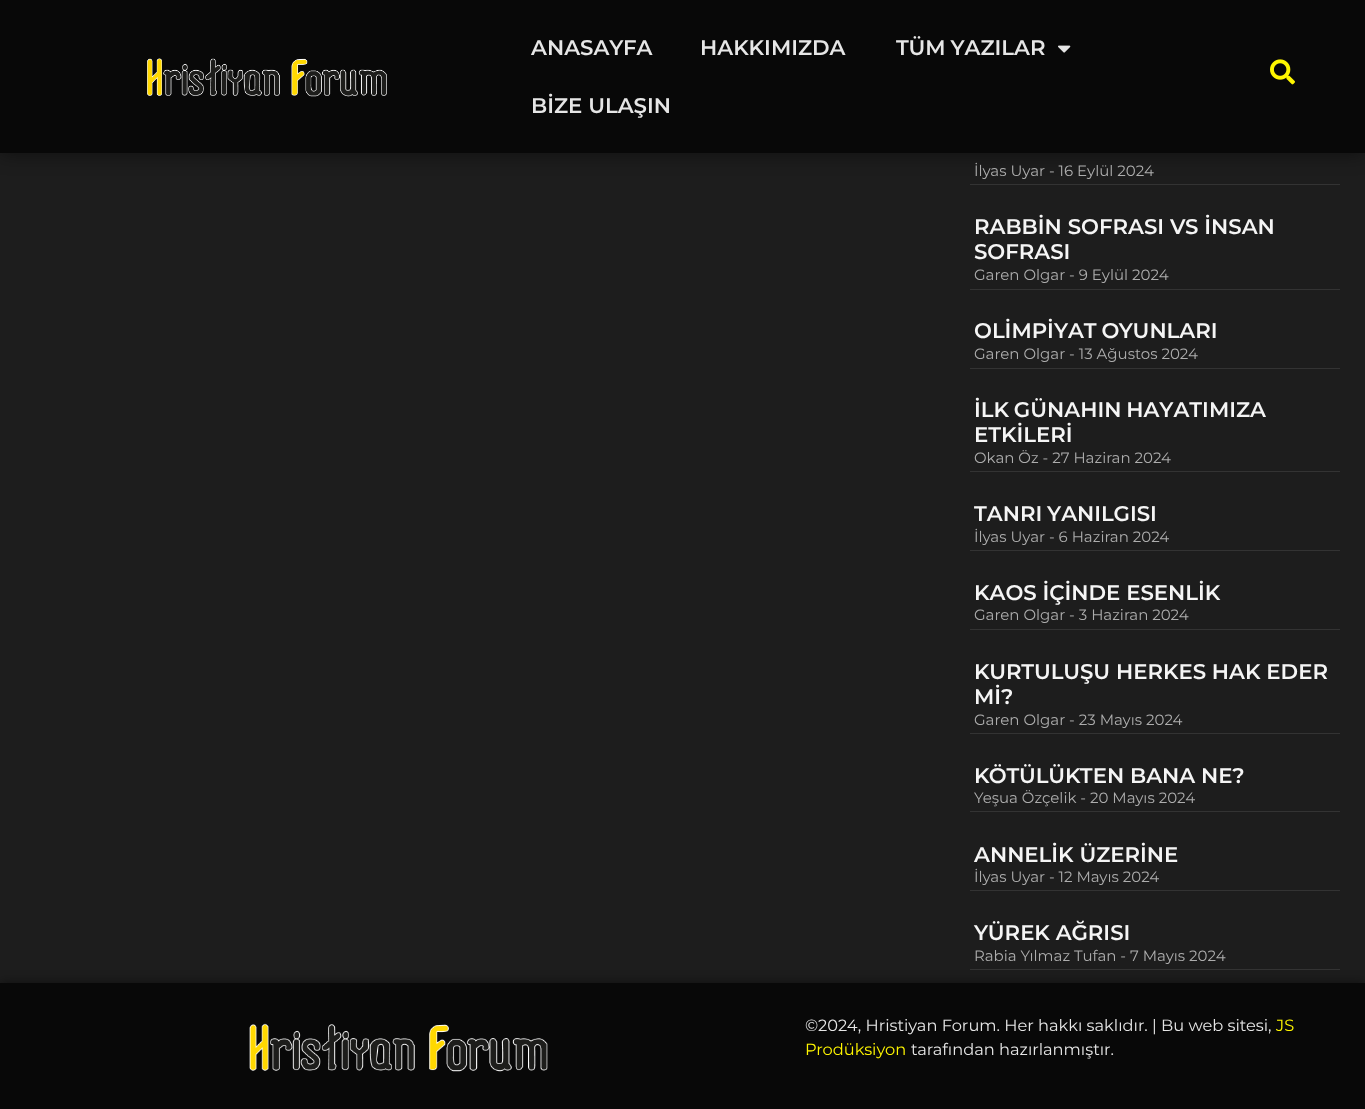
(async () => {
    const canvas = document.querySelector("canvas");
    canvas.width = 1365;
    canvas.height = 1109;
    const context = canvas.getContext("2d");
    context.miterLimit = 4;
    context.fontKerning = "normal";
    function write(s, x, y, font, color) {
        context.font = font;
        context.fillStyle = color;
        context.fillText(s, x, y);
    }
    function block(x, y, w, h, color) {
        context.fillStyle = color;
        context.fillRect(x, y, w, h);
    }
    async function photo(src, x, y, w, h) {
        const img = new Image();
        img.src = src;
        await img.decode();
        context.drawImage(img, x, y, w, h);
    }

    block(0, 0, 1365, 1109, "rgb(29, 29, 29)");
    context.fillStyle = "rgba(0, 0, 0, 0.5)";
    context.filter = "blur(10px)";
    context.beginPath();
    context.rect(0, 0, 1365, 153);
    context.fill();
    context.filter = "none";
    block(0, 0, 1365, 153, "rgb(8, 8, 8)");
    await photo("media/1.png", 147, 58, 240, 39);
    write("ANASAYFA", 531, 55, "600 21.25px Montserrat", "rgb(230, 230, 230)");
    write("HAKKIMIZDA", 700, 55, "600 21.25px Montserrat", "rgb(230, 230, 230)");
    context.wordSpacing = "-1px";
    write("TÜM YAZILAR", 896, 55, "600 21.25px Montserrat", "rgb(230, 230, 230)");
    await photo("media/2.png", 1058, 45, 13, 8);
    context.wordSpacing = "0px";
    write("BİZE ULAŞIN", 531, 113, "600 21.25px Montserrat", "rgb(230, 230, 230)");
    await photo("media/3.png", 1270, 59, 25, 26);
    block(970, 184, 370, 1, "rgb(51, 51, 51)");
    write("İlyas Uyar - 16 Eylül 2024", 974, 176, "15px Montserrat", "rgb(173, 173, 173)");
    block(970, 289, 370, 1, "rgb(51, 51, 51)");
    write("RABBİN SOFRASI VS İNSAN", 974, 234, "600 21.25px Montserrat", "rgb(245, 245, 245)");
    write("SOFRASI", 974, 259, "600 21.25px Montserrat", "rgb(245, 245, 245)");
    write("Garen Olgar - 9 Eylül 2024", 974, 280, "15px Montserrat", "rgb(173, 173, 173)");
    block(970, 368, 370, 1, "rgb(51, 51, 51)");
    context.wordSpacing = "-1px";
    write("OLİMPİYAT OYUNLARI", 974, 338, "600 21.25px Montserrat", "rgb(245, 245, 245)");
    context.wordSpacing = "0px";
    write("Garen Olgar - 13 Ağustos 2024", 974, 359, "15px Montserrat", "rgb(173, 173, 173)");
    block(970, 471, 370, 1, "rgb(51, 51, 51)");
    context.wordSpacing = "-1px";
    write("İLK GÜNAHIN HAYATIMIZA", 974, 417, "600 21.25px Montserrat", "rgb(245, 245, 245)");
    context.wordSpacing = "0px";
    write("ETKİLERİ", 974, 442, "600 21.25px Montserrat", "rgb(245, 245, 245)");
    write("Okan Öz - 27 Haziran 2024", 974, 463, "15px Montserrat", "rgb(173, 173, 173)");
    block(970, 550, 370, 1, "rgb(51, 51, 51)");
    context.wordSpacing = "-1px";
    write("TANRI YANILGISI", 974, 521, "600 21.25px Montserrat", "rgb(245, 245, 245)");
    context.wordSpacing = "0px";
    write("İlyas Uyar - 6 Haziran 2024", 974, 542, "15px Montserrat", "rgb(173, 173, 173)");
    block(970, 629, 370, 1, "rgb(51, 51, 51)");
    write("KAOS İÇİNDE ESENLİK", 974, 600, "600 21.25px Montserrat", "rgb(245, 245, 245)");
    write("Garen Olgar - 3 Haziran 2024", 974, 620, "15px Montserrat", "rgb(173, 173, 173)");
    block(970, 733, 370, 1, "rgb(51, 51, 51)");
    write("KURTULUŞU HERKES HAK EDER", 974, 679, "600 21.25px Montserrat", "rgb(245, 245, 245)");
    write("Mİ?", 974, 704, "600 21.25px Montserrat", "rgb(245, 245, 245)");
    write("Garen Olgar - 23 Mayıs 2024", 974, 725, "15px Montserrat", "rgb(173, 173, 173)");
    block(970, 811, 370, 1, "rgb(51, 51, 51)");
    write("KÖTÜLÜKTEN BANA NE?", 974, 783, "600 21.25px Montserrat", "rgb(245, 245, 245)");
    write("Yeşua Özçelik - 20 Mayıs 2024", 974, 803, "15px Montserrat", "rgb(173, 173, 173)");
    block(970, 890, 370, 1, "rgb(51, 51, 51)");
    write("ANNELİK ÜZERİNE", 974, 862, "600 21.25px Montserrat", "rgb(245, 245, 245)");
    write("İlyas Uyar - 12 Mayıs 2024", 974, 882, "15px Montserrat", "rgb(173, 173, 173)");
    context.fillStyle = "rgba(0, 0, 0, 0.5)";
    context.filter = "blur(6px)";
    context.beginPath();
    context.rect(0, 983, 1365, 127);
    context.fill();
    context.filter = "none";
    block(970, 969, 370, 1, "rgb(51, 51, 51)");
    write("YÜREK AĞRISI", 974, 940, "600 21.25px Montserrat", "rgb(245, 245, 245)");
    write("Rabia Yılmaz Tufan - 7 Mayıs 2024", 974, 961, "15px Montserrat", "rgb(173, 173, 173)");
    block(0, 983, 1365, 126, "rgb(8, 8, 8)");
    await photo("media/4.png", 249, 1023, 299, 49);
    write("©2024, Hristiyan Forum. Her hakkı saklıdır. | Bu web sitesi,", 805, 1031, "16.25px Montserrat", "rgb(230, 230, 230)");
    write("JS", 1276, 1031, "16.25px Montserrat", "rgb(255, 246, 0)");
    write("Prodüksiyon", 805, 1055, "16.25px Montserrat", "rgb(255, 246, 0)");
    write("tarafından hazırlanmıştır.", 911, 1055, "16.25px Montserrat", "rgb(230, 230, 230)");
})();
